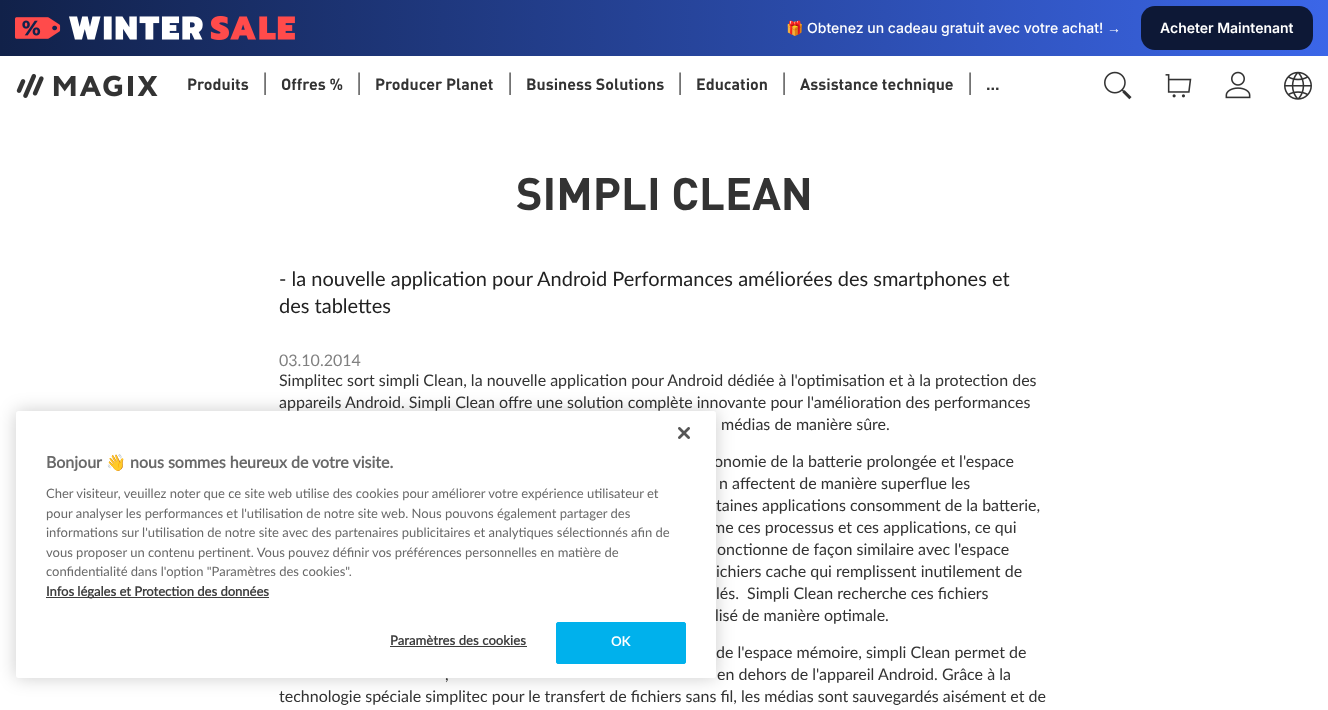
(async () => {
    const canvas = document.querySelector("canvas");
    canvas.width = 1328;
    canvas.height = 710;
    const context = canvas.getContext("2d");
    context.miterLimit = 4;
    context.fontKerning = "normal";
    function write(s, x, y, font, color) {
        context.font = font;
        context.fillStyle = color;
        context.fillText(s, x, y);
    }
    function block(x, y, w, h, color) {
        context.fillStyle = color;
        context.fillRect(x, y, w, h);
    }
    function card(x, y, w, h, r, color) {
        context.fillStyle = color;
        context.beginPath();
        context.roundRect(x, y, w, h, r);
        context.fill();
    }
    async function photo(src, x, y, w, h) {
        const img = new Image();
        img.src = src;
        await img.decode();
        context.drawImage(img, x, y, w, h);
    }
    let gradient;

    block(0, 0, 1328, 710, "rgb(255, 255, 255)");
    gradient = context.createLinearGradient(0, 28, 1328, 28);
    gradient.addColorStop(0, "rgb(17, 33, 73)");
    gradient.addColorStop(1, "rgb(59, 102, 232)");
    context.fillStyle = gradient;
    context.fillRect(0, 0, 1328, 56);
    await photo("media/1.png", 15, 16, 280, 24);
    write("🎁", 786, 33, "14px Noto Color Emoji", "rgb(255, 255, 255)");
    write("Obtenez un cadeau gratuit avec votre achat!", 807, 33, "500 14px Inter", "rgb(255, 255, 255)");
    write("→", 1107, 33, "14px Liberation Sans", "rgb(255, 255, 255)");
    card(1141, 6, 172, 44, 14, "rgb(13, 24, 54)");
    write("Acheter Maintenant", 1160, 33, "600 14px Inter", "rgb(255, 255, 255)");
    await photo("media/2.png", 16, 73, 142, 25);
    write("Produits", 187, 90, "bold 16px DIN", "rgb(51, 51, 51)");
    write("|", 261, 93, "300 26px Din", "rgb(51, 51, 51)");
    write("Offres %", 281, 90, "bold 16px DIN", "rgb(51, 51, 51)");
    write("|", 355, 93, "300 26px Din", "rgb(51, 51, 51)");
    write("Producer Planet", 375, 90, "bold 16px DIN", "rgb(51, 51, 51)");
    write("|", 506, 93, "300 26px Din", "rgb(51, 51, 51)");
    write("Business Solutions", 526, 90, "bold 16px DIN", "rgb(51, 51, 51)");
    write("|", 676, 93, "300 26px Din", "rgb(51, 51, 51)");
    write("Education", 696, 90, "bold 16px DIN", "rgb(51, 51, 51)");
    write("|", 780, 93, "300 26px Din", "rgb(51, 51, 51)");
    write("Assistance technique", 800, 90, "bold 16px DIN", "rgb(51, 51, 51)");
    write("|", 966, 93, "300 26px Din", "rgb(51, 51, 51)");
    write("...", 986, 90, "bold 16px DIN", "rgb(51, 51, 51)");
    await photo("media/3.png", 1104, 71, 28, 29);
    await photo("media/4.png", 1165, 74, 27, 24);
    await photo("media/5.png", 1225, 71, 26, 28);
    await photo("media/6.png", 1284, 71, 28, 29);
    write("SIMPLI CLEAN", 516, 210, "bold 45px DIN", "rgb(51, 51, 51)");
    write("- la nouvelle application pour Android Performances améliorées des smartphones et", 279, 286, "20px Lato", "rgb(34, 34, 34)");
    write("des tablettes", 279, 313, "20px Lato", "rgb(34, 34, 34)");
    write("03.10.2014", 279, 366, "16px Lato", "rgb(128, 128, 128)");
    write("Simplitec sort simpli Clean, la nouvelle application pour Android dédiée à l'optimisation et à la protection des", 279, 386, "16px Lato", "rgb(51, 51, 51)");
    write("appareils Android. Simpli Clean offre une solution complète innovante pour l'amélioration des performances", 279, 408, "16px Lato", "rgb(51, 51, 51)");
    write("médias de manière sûre.", 721, 430, "16px Lato", "rgb(51, 51, 51)");
    write("onomie de la batterie prolongée et l'espace", 714, 467, "16px Lato", "rgb(51, 51, 51)");
    write("n affectent de manière superflue les", 719, 489, "16px Lato", "rgb(51, 51, 51)");
    write("taines applications consomment de la batterie,", 716, 511, "16px Lato", "rgb(51, 51, 51)");
    write("me ces processus et ces applications, ce qui", 712, 533, "16px Lato", "rgb(51, 51, 51)");
    write("onctionne de façon similaire avec l'espace", 717, 555, "16px Lato", "rgb(51, 51, 51)");
    write("ichiers cache qui remplissent inutilement de", 716, 577, "16px Lato", "rgb(51, 51, 51)");
    write("lés.  Simpli Clean recherche ces fichiers", 716, 599, "16px Lato", "rgb(51, 51, 51)");
    write("lisé de manière optimale.", 715, 621, "16px Lato", "rgb(51, 51, 51)");
    write("de l'espace mémoire, simpli Clean permet de", 716, 658, "16px Lato", "rgb(51, 51, 51)");
    write(",", 445, 680, "16px Lato", "rgb(51, 51, 51)");
    write("en dehors de l'appareil Android. Grâce à la", 717, 680, "16px Lato", "rgb(51, 51, 51)");
    write("technologie spéciale simplitec pour le transfert de fichiers sans fil, les médias sont sauvegardés aisément et de", 279, 702, "16px Lato", "rgb(51, 51, 51)");
    context.fillStyle = "rgba(0, 0, 0, 0.2)";
    context.filter = "blur(9px)";
    context.beginPath();
    context.roundRect(16, 411, 700, 267, 2.5);
    context.fill();
    context.filter = "none";
    card(16, 411, 700, 267, 2.5, "rgb(255, 255, 255)");
    await photo("media/7.png", 678, 427, 12, 12);
    write("Bonjour", 46, 468, "bold 16px Lato", "rgb(105, 105, 105)");
    write("👋", 106, 468, "bold 16px Noto Color Emoji", "rgb(105, 105, 105)");
    write("nous sommes heureux de votre visite.", 130, 468, "bold 16px Lato", "rgb(105, 105, 105)");
    write("Cher visiteur, veuillez noter que ce site web utilise des cookies pour améliorer votre expérience utilisateur et", 46, 498, "13px Lato", "rgb(105, 105, 105)");
    write("pour analyser les performances et l'utilisation de notre site web. Nous pouvons également partager des", 46, 518, "13px Lato", "rgb(105, 105, 105)");
    write("informations sur l'utilisation de notre site avec des partenaires publicitaires et analytiques sélectionnés afin de", 46, 537, "13px Lato", "rgb(105, 105, 105)");
    write("vous proposer un contenu pertinent. Vous pouvez définir vos préférences personnelles en matière de", 46, 557, "13px Lato", "rgb(105, 105, 105)");
    write("confidentialité dans l'option \"Paramètres des cookies\".", 46, 576, "13px Lato", "rgb(105, 105, 105)");
    block(46, 597, 223, 1, "rgb(61, 61, 61)");
    write("Infos légales et Protection des données", 46, 596, "bold 13px Lato", "rgb(61, 61, 61)");
    context.letterSpacing = "0.1px";
    write("Paramètres des cookies", 390, 645, "bold 13px Lato", "rgb(61, 61, 61)");
    block(390, 646, 137, 1, "rgb(61, 61, 61)");
    context.fillStyle = "rgb(0, 177, 236)";
    context.beginPath();
    context.roundRect(556.5, 622.5, 129, 41, 1.5);
    context.fill();
    context.strokeStyle = "rgb(0, 177, 236)";
    context.stroke();
    write("OK", 611, 646, "bold 13px Lato", "rgb(255, 255, 255)");
})();
